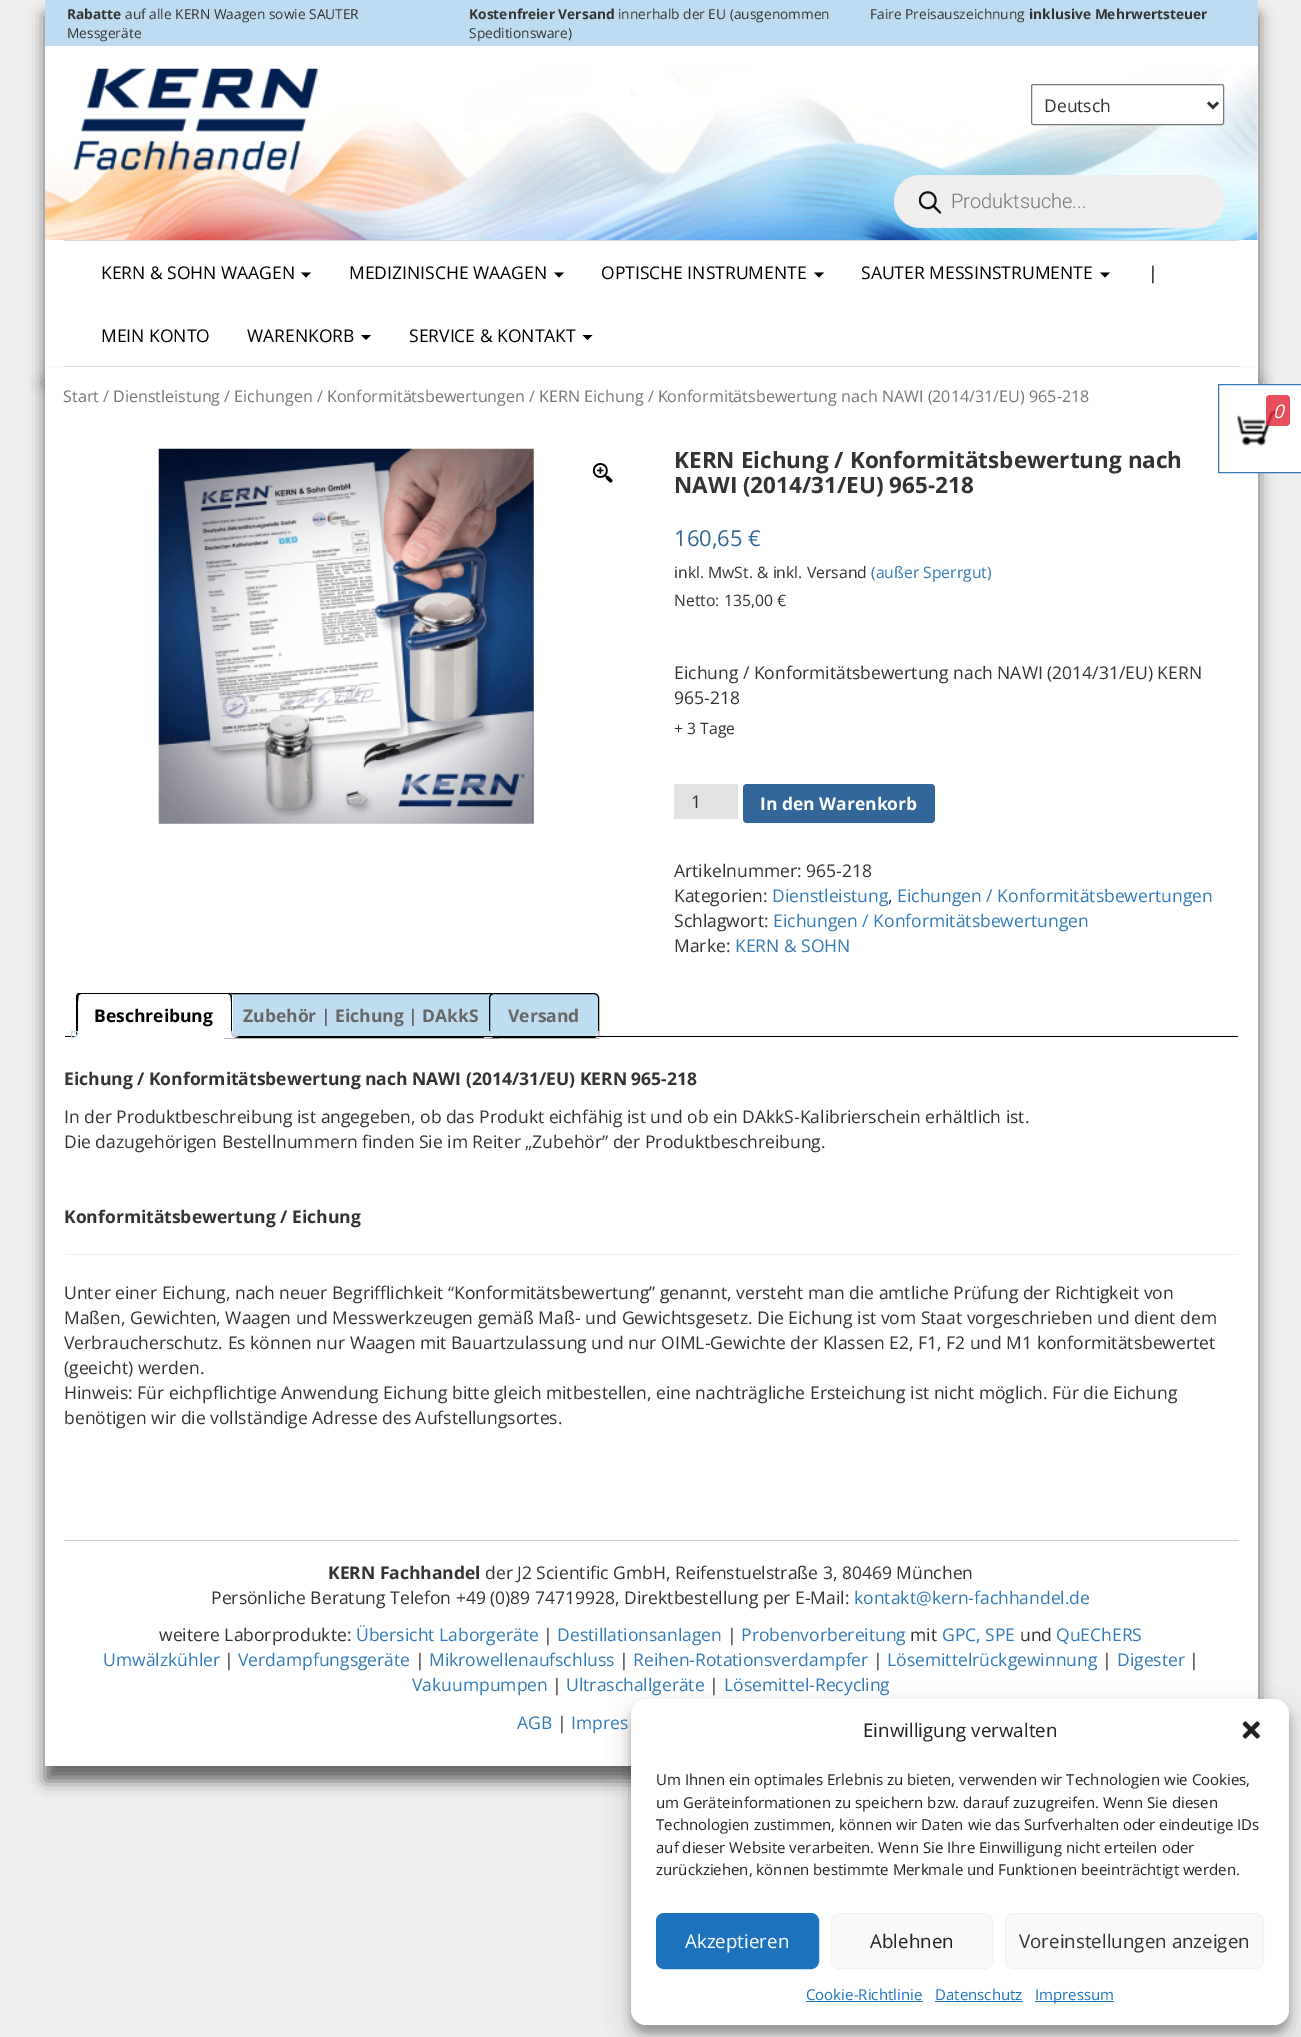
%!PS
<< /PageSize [1301 2037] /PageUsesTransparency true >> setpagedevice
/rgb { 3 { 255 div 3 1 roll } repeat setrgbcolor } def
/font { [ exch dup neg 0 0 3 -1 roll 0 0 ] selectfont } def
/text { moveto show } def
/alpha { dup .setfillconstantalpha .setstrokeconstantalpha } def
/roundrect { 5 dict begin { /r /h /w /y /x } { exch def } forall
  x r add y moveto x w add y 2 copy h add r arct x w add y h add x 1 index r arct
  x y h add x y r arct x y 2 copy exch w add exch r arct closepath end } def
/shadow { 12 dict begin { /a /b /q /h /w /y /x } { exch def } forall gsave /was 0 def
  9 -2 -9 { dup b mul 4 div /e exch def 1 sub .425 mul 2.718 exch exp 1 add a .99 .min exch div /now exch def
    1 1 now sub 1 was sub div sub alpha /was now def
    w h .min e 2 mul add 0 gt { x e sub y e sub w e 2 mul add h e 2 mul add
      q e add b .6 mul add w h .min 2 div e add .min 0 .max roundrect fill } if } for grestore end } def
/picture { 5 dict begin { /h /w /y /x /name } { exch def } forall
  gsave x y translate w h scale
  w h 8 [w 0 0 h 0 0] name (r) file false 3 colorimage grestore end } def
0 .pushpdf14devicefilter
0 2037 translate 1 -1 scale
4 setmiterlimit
238 238 238 rgb
0 0 1301 2037 rectfill
102 102 102 rgb
45 15 1213 368 0 7.5 1 shadow
255 255 255 rgb
45 46 1213 322 rectfill
190 220 241 rgb
45 0 1213 46 rectfill
(img_01.rgb) 45 66 1213 174 picture
(img_02.rgb) 73 68 245 103 picture
255 255 255 rgb
1031.5 84.5 192 40 2 roundrect gsave fill grestore
118 118 118 rgb
stroke
51 51 51 rgb
2.5 setlinewidth
1208 102.5 moveto 5 5 rlineto 5 -5 rlineto stroke
238 238 238 rgb
894 175 331 53 26.5 roundrect fill
(img_03.rgb) 919 191 22 23 picture
102 102 102 rgb
45 383 1213 1398 0 7.5 1 shadow
255 255 255 rgb
64 367 1175 1 rectfill
220 220 220 rgb
64 240 1175 1 rectfill
64 366 1175 1 rectfill
0 0 0 rgb
301 272.5 moveto 10 0 rlineto -5 5 rlineto closepath fill
554 272.5 moveto 10 0 rlineto -5 5 rlineto closepath fill
814 272.5 moveto 10 0 rlineto -5 5 rlineto closepath fill
1100 272.5 moveto 10 0 rlineto -5 5 rlineto closepath fill
361 335 moveto 10 0 rlineto -5 5 rlineto closepath fill
582.5 335 moveto 10 0 rlineto -5 5 rlineto closepath fill
255 255 255 rgb
45 368 1213 1398 rectfill
1258 385 43 87 rectfill
51 122 183 rgb
1 setlinewidth
1218.5 384.5 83 88 rectstroke
(img_04.rgb) 1237 409 41 37 picture
0.8 alpha
227 34 53 rgb
1266 395 24 31 4 roundrect fill
1 alpha
(img_05.rgb) 158 448 376 376 picture
(img_06.rgb) 592 463 21 20 picture
226 226 226 rgb
674 784 64 35 rectfill
51 102 153 rgb
743 784 192 39 4 roundrect fill
191 221 241 rgb
231 993 263 43 rectfill
0 0 0 rgb
224.5 993.5 273 44 rectstroke
191 221 241 rgb
494 993.5 moveto 100 0 rlineto 2.5 0 4.5 2 4.5 4.5 rcurveto 0 39.5 rlineto -109 0 rlineto 0 -39.5 rlineto 0 -2.5 2 -4.5 4.5 -4.5 rcurveto closepath gsave fill grestore
0 0 0 rgb
stroke
gsave
65 993 1173 45 rectclip
233 230 237 rgb
486 1037.5 moveto 0 2.5 rlineto 4.5 0 7 -1 7 -6 rcurveto -3 0 rlineto -1 1.5 -2 3 -4 3.5 rcurveto closepath fill
grestore
192 221 241 rgb
484.5 1031.5 moveto 5 0 rlineto 0 1.5 rlineto 0 2.5 -2 4.5 -4.5 4.5 rcurveto -0.5 0 rlineto closepath stroke
gsave
65 993 1173 45 rectclip
233 230 237 rgb
595 1034 moveto 0 4 2 6 6 6 rcurveto 0 -2.5 rlineto -1.5 -0.5 -3 -2 -3.5 -3.5 rcurveto closepath fill
grestore
207 200 216 rgb
597.5 1031 moveto 6.5 0 rlineto 0 6.5 rlineto -3.5 0 -6.5 -1.5 -6.5 -5 rcurveto closepath 599 1031 moveto 5 0 rlineto 0 5 rlineto -2.5 0 -5 -0.5 -5 -3.5 rcurveto closepath eofill
0 0 0 rgb
65 1036 1173 1 rectfill
255 255 255 rgb
81 993 moveto 147 0 rlineto 3 0 5 2 5 5 rcurveto 0 40 rlineto -157 0 rlineto 0 -40 rlineto 0 -3 2 -5 5 -5 rcurveto closepath fill
gsave
65 993 1173 45 rectclip
0 0 0 rgb
81 994 moveto -2 1 rlineto -2 -1 rlineto 2 -2 rlineto 150 0 rlineto 2 2 rlineto -1 1 rlineto -2 -1 rlineto closepath fill
grestore
0 0 0 rgb
231 994 moveto 1 1 1 3 1 4 rcurveto 0 39 rlineto -1 -1 rlineto 0 -5 1 -39 -1 -41 rcurveto closepath fill
255 255 255 rgb
232 1037 moveto 0 1 rlineto -156 0 rlineto 2 -2 rlineto 153 0 rlineto closepath fill
0 0 0 rgb
76 1038 moveto 0 -42 rlineto 1 -2 rlineto 2 1 rlineto -2 2 -1 35 -1 41 rcurveto closepath fill
gsave
65 993 1173 45 rectclip
255 255 255 rgb
74 1037.5 moveto 0 2.5 rlineto 4 0 6 -2 6 -6 rcurveto -2.5 0 rlineto -0.5 1.5 -2 3 -3.5 3.5 rcurveto closepath fill
grestore
192 221 241 rgb
71.5 1031.5 moveto 6 0 rlineto 0 1.5 rlineto 0 2.5 -2 4.5 -4.5 4.5 rcurveto -1.5 0 rlineto closepath stroke
gsave
65 993 1173 45 rectclip
255 255 255 rgb
229 1034 moveto 0 4 2 6 6 6 rcurveto 0 -2.5 rlineto -1.5 -0.5 -3 -2 -3.5 -3.5 rcurveto closepath fill
grestore
207 200 216 rgb
231 1031 moveto 6.5 0 rlineto 0 6.5 rlineto -3 0 -6.5 -1.5 -6.5 -5 rcurveto closepath 232.5 1031 moveto 5 0 rlineto 0 5 rlineto -2.5 0 -5 -0.5 -5 -3.5 rcurveto closepath eofill
238 238 238 rgb
65 1254 1173 1 rectfill
204 204 204 rgb
64 1540 1175 1 rectfill
0 0 0 rgb
631 1706 658 327 15 4 0.23 shadow
631 1711 658 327 15 12.5 0.19 shadow
255 255 255 rgb
631 1699 658 326 15 roundrect fill
(img_07.rgb) 1242 1721 18 18 picture
30 115 190 rgb
656.5 1913.5 162 55 7.5 roundrect gsave fill grestore
stroke
249 249 249 rgb
831.5 1913.5 161 55 7.5 roundrect gsave fill grestore
242 242 242 rgb
stroke
249 249 249 rgb
1005.5 1913.5 258 55 7.5 roundrect gsave fill grestore
242 242 242 rgb
stroke
30 115 190 rgb
806 2001 117 1 rectfill
935 2001 88 1 rectfill
1035 2001 79 1 rectfill
/OpenSans-Bold 13.75 font
51 51 51 rgb
(Rabatte) 67 19 text
/OpenSans-Regular 13.75 font
(auf alle KERN Waagen sowie SAUTER) 125 19 text
(Messgeräte) 67 38 text
/OpenSans-Bold 13.75 font
(Kostenfreier Versand) 469 19 text
/OpenSans-Regular 13.75 font
(innerhalb der EU \(ausgenommen) 618 19 text
(Speditionsware\)) 469 38 text
(Faire Preisauszeichnung) 870 19 text
/OpenSans-Bold 13.75 font
(inklusive Mehrwertsteuer) 1029 19 text
/OpenSans-Regular 17.5 font
(Deutsch) 1044 112 text
/Roboto-Light 20 font
118 118 118 rgb
(Produktsuche...) 951 208 text
/OpenSans-Regular 17.5 font
0 0 0 rgb
(KERN & SOHN WAAGEN) 101 279 text
(MEDIZINISCHE WAAGEN) 349 279 text
(OPTISCHE INSTRUMENTE) 601 279 text
(SAUTER MESSINSTRUMENTE) 861 279 text
(|) 1148 279 text
(MEIN KONTO) 101 342 text
(WARENKORB) 247 342 text
(SERVICE & KONTAKT) 409 342 text
/OpenSans-Regular 16.1 font
118 118 118 rgb
(Start / Dienstleistung / Eichungen / Konformitätsbewertungen / KERN Eichung / Konformitätsbewertung nach NAWI \(2014/31/EU\) 965-218) 63 402 text
/OpenSans-Italic 18.75 font
255 255 255 rgb
(0) 1273 418 text
/OpenSans-Bold 22.5 font
51 51 51 rgb
(KERN Eichung / Konformitätsbewertung nach) 674 468 text
(NAWI \(2014/31/EU\) 965-218) 674 493 text
/OpenSans-Regular 22 font
51 102 153 rgb
(160,65 €) 674 546 text
/OpenSans-Regular 15.75 font
51 51 51 rgb
(inkl. MwSt. & inkl. Versand) 674 578 text
51 122 183 rgb
(\(außer Sperrgut\)) 871 578 text
51 51 51 rgb
(Netto: 135,00 €) 674 606 text
/OpenSans-Regular 17.5 font
(Eichung / Konformitätsbewertung nach NAWI \(2014/31/EU\) KERN) 674 679 text
(965-218) 674 704 text
/OpenSans-Regular 15.75 font
(+ 3 Tage) 674 734 text
/OpenSans-Regular 17.5 font
(1) 691 808 text
/OpenSans-Bold 17.5 font
255 255 255 rgb
(In den Warenkorb) 760 810 text
/OpenSans-Regular 17.5 font
51 51 51 rgb
(Artikelnummer: 965-218) 674 877 text
(Kategorien:) 674 902 text
51 122 183 rgb
(Dienstleistung) 772 902 text
51 51 51 rgb
(,) 888 902 text
51 122 183 rgb
(Eichungen / Konformitätsbewertungen) 897 902 text
51 51 51 rgb
(Schlagwort:) 674 927 text
51 122 183 rgb
(Eichungen / Konformitätsbewertungen) 773 927 text
51 51 51 rgb
(Marke:) 674 952 text
51 122 183 rgb
(KERN & SOHN) 735 952 text
/OpenSans-Bold 17.5 font
0 0 0 rgb
(Beschreibung) 94 1022 text
102 102 102 rgb
(Zubehör | Eichung | DAkkS) 243 1022 text
(Versand) 508 1022 text
51 51 51 rgb
(Eichung / Konformitätsbewertung nach NAWI \(2014/31/EU\) KERN 965-218) 64 1085 text
/OpenSans-Regular 17.5 font
(In der Produktbeschreibung ist angegeben, ob das Produkt eichfähig ist und ob ein DAkkS-Kalibrierschein erhältlich ist.) 64 1123 text
(Die dazugehörigen Bestellnummern finden Sie im Reiter „Zubehör” der Produktbeschreibung.) 64 1148 text
/OpenSans-Bold 17.5 font
(Konformitätsbewertung / Eichung) 64 1223 text
/OpenSans-Regular 17.5 font
(Unter einer Eichung, nach neuer Begrifflichkeit “Konformitätsbewertung” genannt, versteht man die amtliche Prüfung der Richtigkeit von) 64 1299 text
(Maßen, Gewichten, Waagen und Messwerkzeugen gemäß Maß- und Gewichtsgesetz. Die Eichung ist vom Staat vorgeschrieben und dient dem) 64 1324 text
(Verbraucherschutz. Es können nur Waagen mit Bauartzulassung und nur OIML-Gewichte der Klassen E2, F1, F2 und M1 konformitätsbewertet) 64 1349 text
(\(geeicht\) werden.) 64 1374 text
(Hinweis: Für eichpflichtige Anwendung Eichung bitte gleich mitbestellen, eine nachträgliche Ersteichung ist nicht möglich. Für die Eichung) 64 1399 text
(benötigen wir die vollständige Adresse des Aufstellungsortes.) 64 1424 text
/OpenSans-Bold 17.5 font
(KERN Fachhandel) 328 1579 text
/OpenSans-Regular 17.5 font
(der J2 Scientific GmbH, Reifenstuelstraße 3, 80469 München) 485 1579 text
(Persönliche Beratung Telefon +49 \(0\)89 74719928, Direktbestellung per E-Mail:) 211 1604 text
51 122 183 rgb
(kontakt@kern-fachhandel.de) 854 1604 text
51 51 51 rgb
(weitere Laborprodukte:) 159 1641 text
51 122 183 rgb
(Übersicht Laborgeräte) 356 1641 text
51 51 51 rgb
(|) 543 1641 text
51 122 183 rgb
(Destillationsanlagen) 557 1641 text
51 51 51 rgb
(|) 727 1641 text
51 122 183 rgb
(Probenvorbereitung) 741 1641 text
51 51 51 rgb
(mit) 910 1641 text
51 122 183 rgb
(GPC, SPE) 942 1641 text
51 51 51 rgb
(und) 1020 1641 text
51 122 183 rgb
(QuEChERS) 1056 1641 text
(Umwälzkühler) 103 1666 text
51 51 51 rgb
(|) 224 1666 text
51 122 183 rgb
(Verdampfungsgeräte) 238 1666 text
51 51 51 rgb
(|) 415 1666 text
51 122 183 rgb
(Mikrowellenaufschluss) 429 1666 text
51 51 51 rgb
(|) 619 1666 text
51 122 183 rgb
(Reihen-Rotationsverdampfer) 633 1666 text
51 51 51 rgb
(|) 873 1666 text
51 122 183 rgb
(Lösemittelrückgewinnung) 887 1666 text
51 51 51 rgb
(|) 1102 1666 text
51 122 183 rgb
(Digester) 1117 1666 text
51 51 51 rgb
(|) 1189 1666 text
51 122 183 rgb
(Vakuumpumpen) 412 1691 text
51 51 51 rgb
(|) 552 1691 text
51 122 183 rgb
(Ultraschallgeräte) 566 1691 text
51 51 51 rgb
(|) 709 1691 text
51 122 183 rgb
(Lösemittel-Recycling) 724 1691 text
(AGB) 517 1729 text
51 51 51 rgb
(|) 557 1729 text
51 122 183 rgb
(Impres) 571 1729 text
/OpenSans-Regular 18.75 font
34 34 34 rgb
(Einwilligung verwalten) 863 1737 text
/OpenSans-Regular 15 font
(Um Ihnen ein optimales Erlebnis zu bieten, verwenden wir Technologien wie Cookies,) 656 1785 text
(um Geräteinformationen zu speichern bzw. darauf zuzugreifen. Wenn Sie diesen) 656 1808 text
(Technologien zustimmen, können wir Daten wie das Surfverhalten oder eindeutige IDs) 656 1830 text
(auf dieser Website verarbeiten. Wenn Sie Ihre Einwilligung nicht erteilen oder) 656 1853 text
(zurückziehen, können bestimmte Merkmale und Funktionen beeinträchtigt werden.) 656 1875 text
/OpenSans-Regular 18.75 font
255 255 255 rgb
(Akzeptieren) 685 1948 text
34 34 34 rgb
(Ablehnen) 870 1948 text
51 51 51 rgb
(Voreinstellungen anzeigen) 1019 1948 text
/OpenSans-Regular 15 font
30 115 190 rgb
(Cookie-Richtlinie) 806 2000 text
(Datenschutz) 935 2000 text
(Impressum) 1035 2000 text
.poppdf14devicefilter showpage
